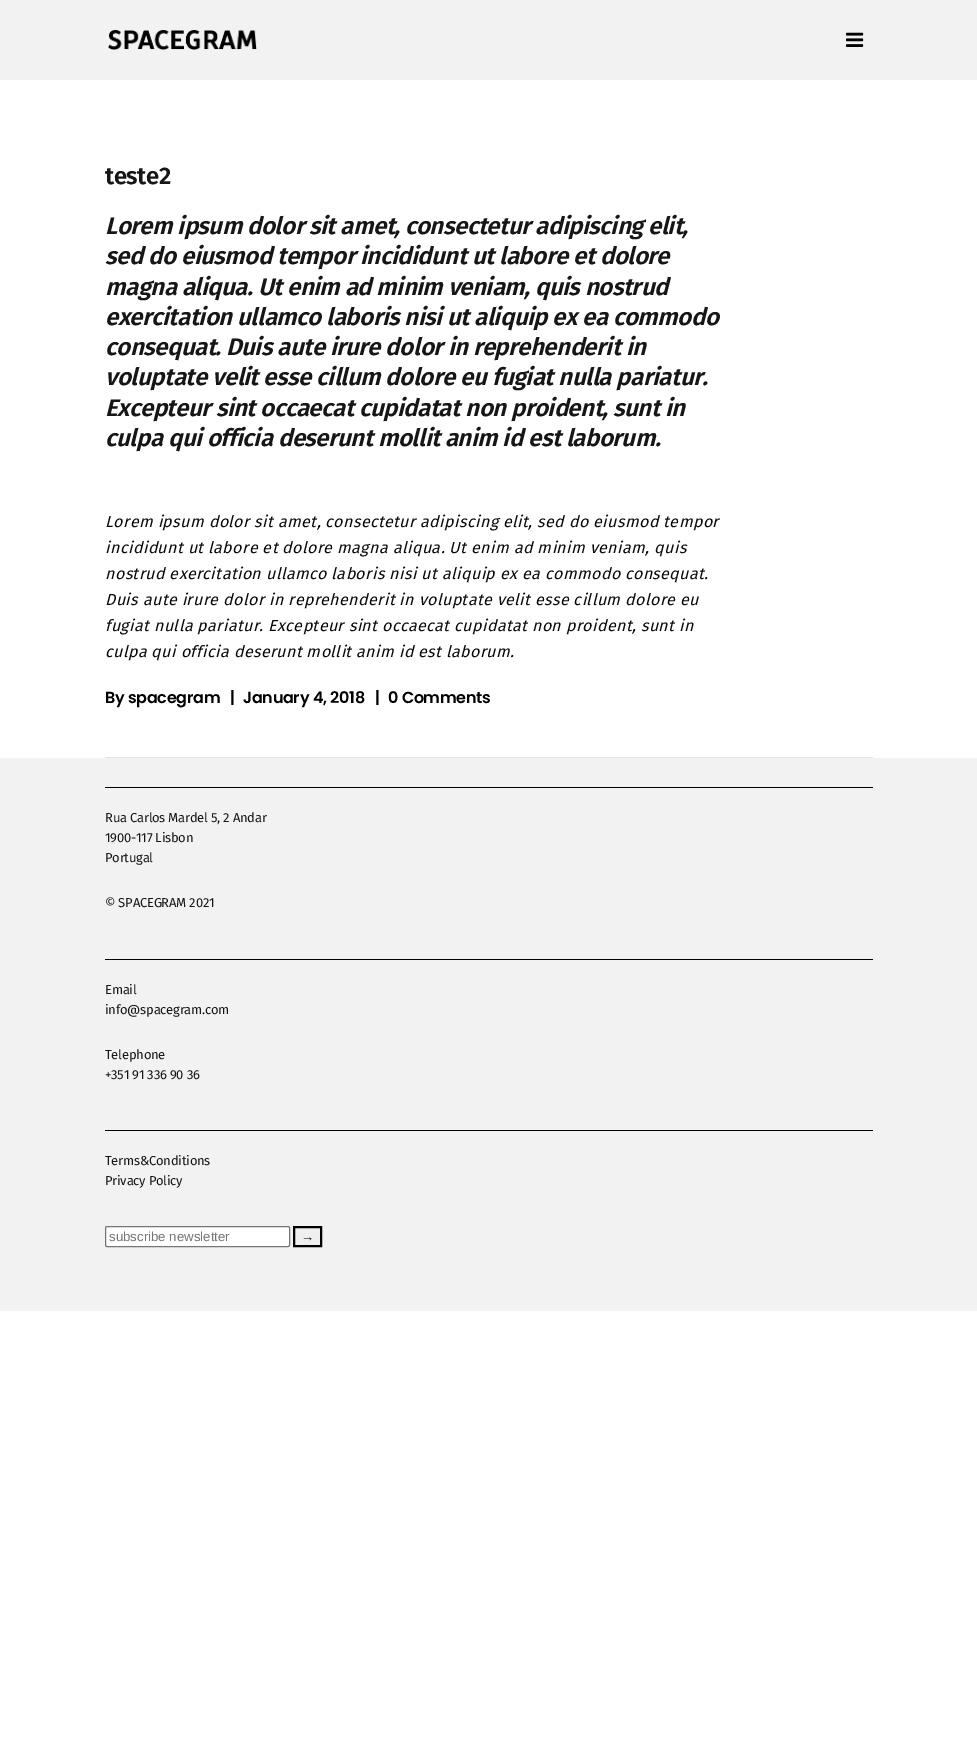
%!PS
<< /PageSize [977 1755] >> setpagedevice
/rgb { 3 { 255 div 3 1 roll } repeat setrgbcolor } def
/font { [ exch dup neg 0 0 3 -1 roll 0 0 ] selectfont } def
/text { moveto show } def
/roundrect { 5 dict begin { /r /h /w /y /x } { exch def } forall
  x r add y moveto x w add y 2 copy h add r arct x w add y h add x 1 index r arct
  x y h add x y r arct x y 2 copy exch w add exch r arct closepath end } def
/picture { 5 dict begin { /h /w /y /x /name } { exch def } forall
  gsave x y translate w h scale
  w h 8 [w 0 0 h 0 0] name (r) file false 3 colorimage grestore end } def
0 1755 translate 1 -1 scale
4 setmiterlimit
255 255 255 rgb
0 0 977 1755 rectfill
242 242 242 rgb
0 0 977 1311 rectfill
(img_01.rgb) 108 30 149 20 picture
(img_02.rgb) 846 32 18 15 picture
255 255 255 rgb
0 80 977 678 rectfill
228 228 228 rgb
105 757 768 1 rectfill
0 0 0 rgb
105 787 768 1 rectfill
105 959 768 1 rectfill
105 1130 768 1 rectfill
255 255 255 rgb
105.5 1226.5 184 20 1.5 roundrect gsave fill grestore
118 118 118 rgb
stroke
239 239 239 rgb
294 1227 moveto 27 0 rlineto 0 19 rlineto -27 0 rlineto closepath gsave fill grestore
0 0 0 rgb
2 setlinewidth
stroke
/FiraSans-SemiBold 24 font
22 22 22 rgb
105 184 moveto -0.48 0 (teste2) ashow
/FiraSans-SemiBoldItalic 24 font
105 234 moveto -0.48 0 (Lorem ipsum dolor sit amet, consectetur adipiscing elit,) ashow
105 264 moveto -0.48 0 (sed do eiusmod tempor incididunt ut labore et dolore) ashow
105 295 moveto -0.48 0 (magna aliqua. Ut enim ad minim veniam, quis nostrud) ashow
105 325 moveto -0.48 0 (exercitation ullamco laboris nisi ut aliquip ex ea commodo) ashow
105 355 moveto -0.48 0 (consequat. Duis aute irure dolor in reprehenderit in) ashow
105 385 moveto -0.48 0 (voluptate velit esse cillum dolore eu fugiat nulla pariatur.) ashow
105 416 moveto -0.48 0 (Excepteur sint occaecat cupidatat non proident, sunt in) ashow
105 446 moveto -0.48 0 (culpa qui officia deserunt mollit anim id est laborum.) ashow
/FiraSans-Italic 16 font
10 10 10 rgb
105 527 moveto 0.4 0 (Lorem ipsum dolor sit amet, consectetur adipiscing elit, sed do eiusmod tempor) ashow
105 553 moveto 0.4 0 (incididunt ut labore et dolore magna aliqua. Ut enim ad minim veniam, quis) ashow
105 579 moveto 0.4 0 (nostrud exercitation ullamco laboris nisi ut aliquip ex ea commodo consequat.) ashow
105 605 moveto 0.4 0 (Duis aute irure dolor in reprehenderit in voluptate velit esse cillum dolore eu) ashow
105 631 moveto 0.4 0 (fugiat nulla pariatur. Excepteur sint occaecat cupidatat non proident, sunt in) ashow
105 657 moveto 0.4 0 (culpa qui officia deserunt mollit anim id est laborum.) ashow
/Poppins-SemiBold 16 font
0 0 0 rgb
105 703 moveto -0.3 0 (By spacegram) ashow
230 703 moveto -0.3 0 (|) ashow
243 703 moveto -0.3 0 (January 4, 2018) ashow
375 703 moveto -0.3 0 (|) ashow
388 703 moveto -0.3 0 (0 Comments) ashow
/FiraSans-Regular 13 font
22 22 22 rgb
105 822 moveto -0.25 0 (Rua Carlos Mardel 5, 2 Andar) ashow
105 842 moveto -0.25 0 (1900-117 Lisbon) ashow
105 862 moveto -0.25 0 (Portugal) ashow
105 907 moveto -0.25 0 (© SPACEGRAM 2021) ashow
105 994 moveto -0.25 0 (Email) ashow
105 1014 moveto -0.25 0 (info@spacegram.com) ashow
105 1059 moveto -0.25 0 (Telephone) ashow
105 1079 moveto -0.25 0 (+351 91 336 90 36) ashow
105 1165 moveto -0.25 0 (Terms&Conditions) ashow
105 1185 moveto -0.25 0 (Privacy Policy) ashow
/LiberationSans-Regular 13.25 font
117 117 117 rgb
(subscribe newsletter) 109 1241 text
0 0 0 rgb
(→) 301 1241 text
showpage
